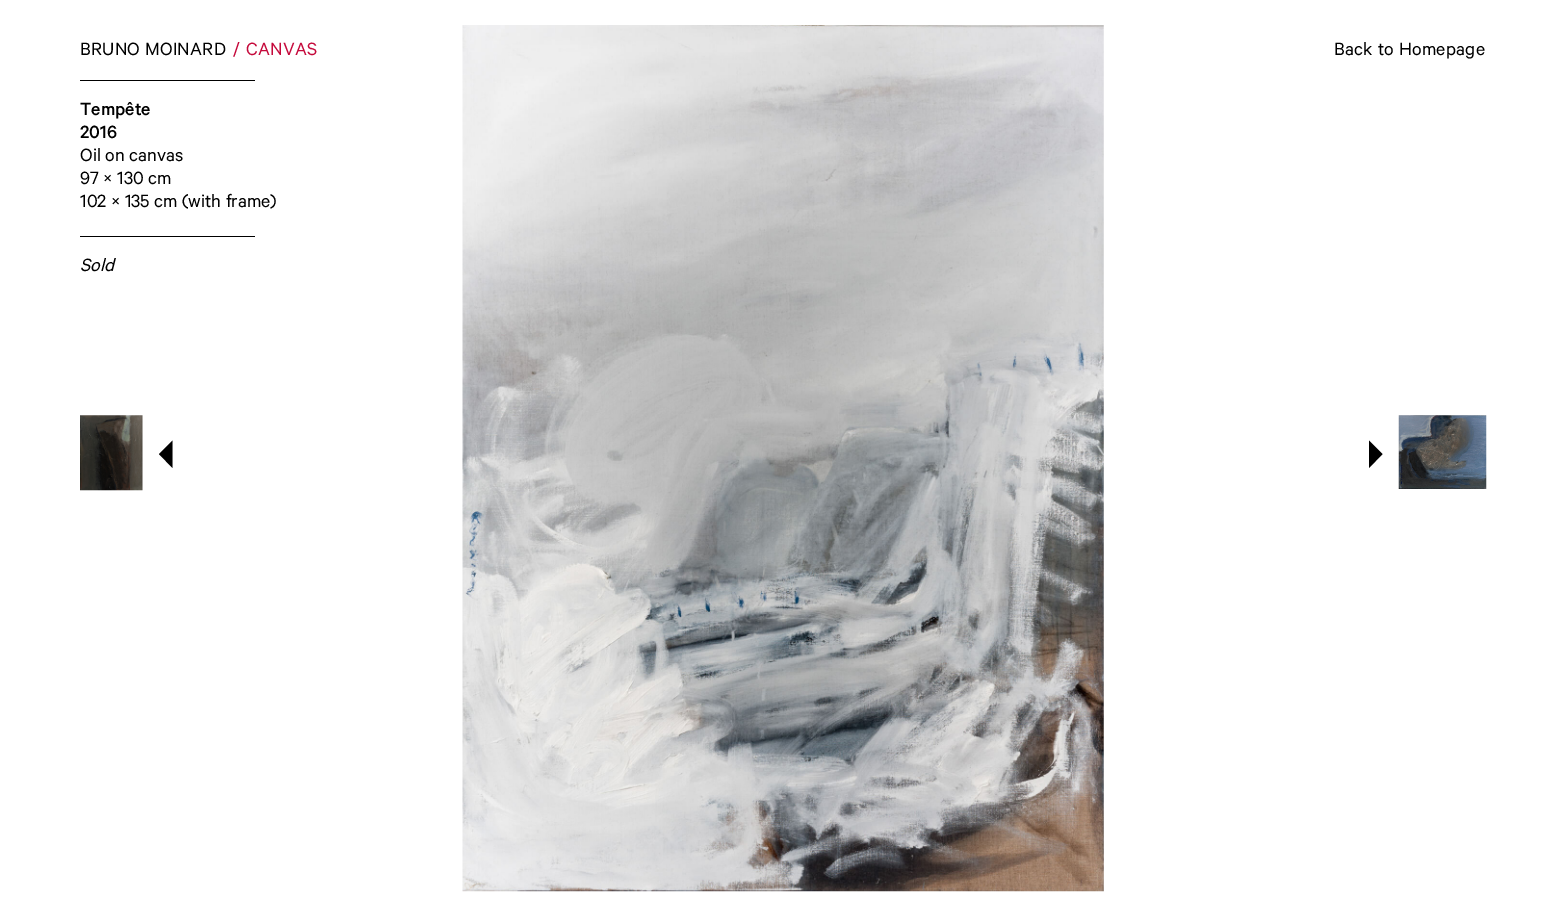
%!PS
<< /PageSize [1566 916] >> setpagedevice
/rgb { 3 { 255 div 3 1 roll } repeat setrgbcolor } def
/font { [ exch dup neg 0 0 3 -1 roll 0 0 ] selectfont } def
/text { moveto show } def
/picture { 5 dict begin { /h /w /y /x /name } { exch def } forall
  gsave x y translate w h scale
  w h 8 [w 0 0 h 0 0] name (r) file false 3 colorimage grestore end } def
0 916 translate 1 -1 scale
4 setmiterlimit
255 255 255 rgb
0 0 1566 916 rectfill
(img_01.rgb) 462 25 642 867 picture
0 0 0 rgb
80 80 175 1 rectfill
80 236 175 1 rectfill
(img_02.rgb) 80 415 63 76 picture
172.5 440.5 moveto 0 27.5 rlineto -13.5 -14 rlineto closepath fill
1369 468 moveto 0 -27.5 rlineto 13.5 13.5 rlineto closepath fill
(img_03.rgb) 1398 415 89 74 picture
/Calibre-Regular 20 font
80 55 moveto 0.25 0 (BRUNO MOINARD) ashow
197 9 59 rgb
233 55 moveto 0.25 0 (/) ashow
246 55 moveto 0.25 0 (CANVAS) ashow
0 0 0 rgb
1334 55 moveto 0.25 0 (Back to Homepage) ashow
/Calibre-Medium 20 font
(Tempête) 80 115 text
(2016) 80 138 text
/Calibre-Regular 20 font
(Oil on canvas) 80 161 text
(97 × 130 cm) 80 184 text
(102 × 135 cm \(with frame\)) 80 207 text
/Calibre-Italic 20 font
(Sold) 80 271 text
showpage
